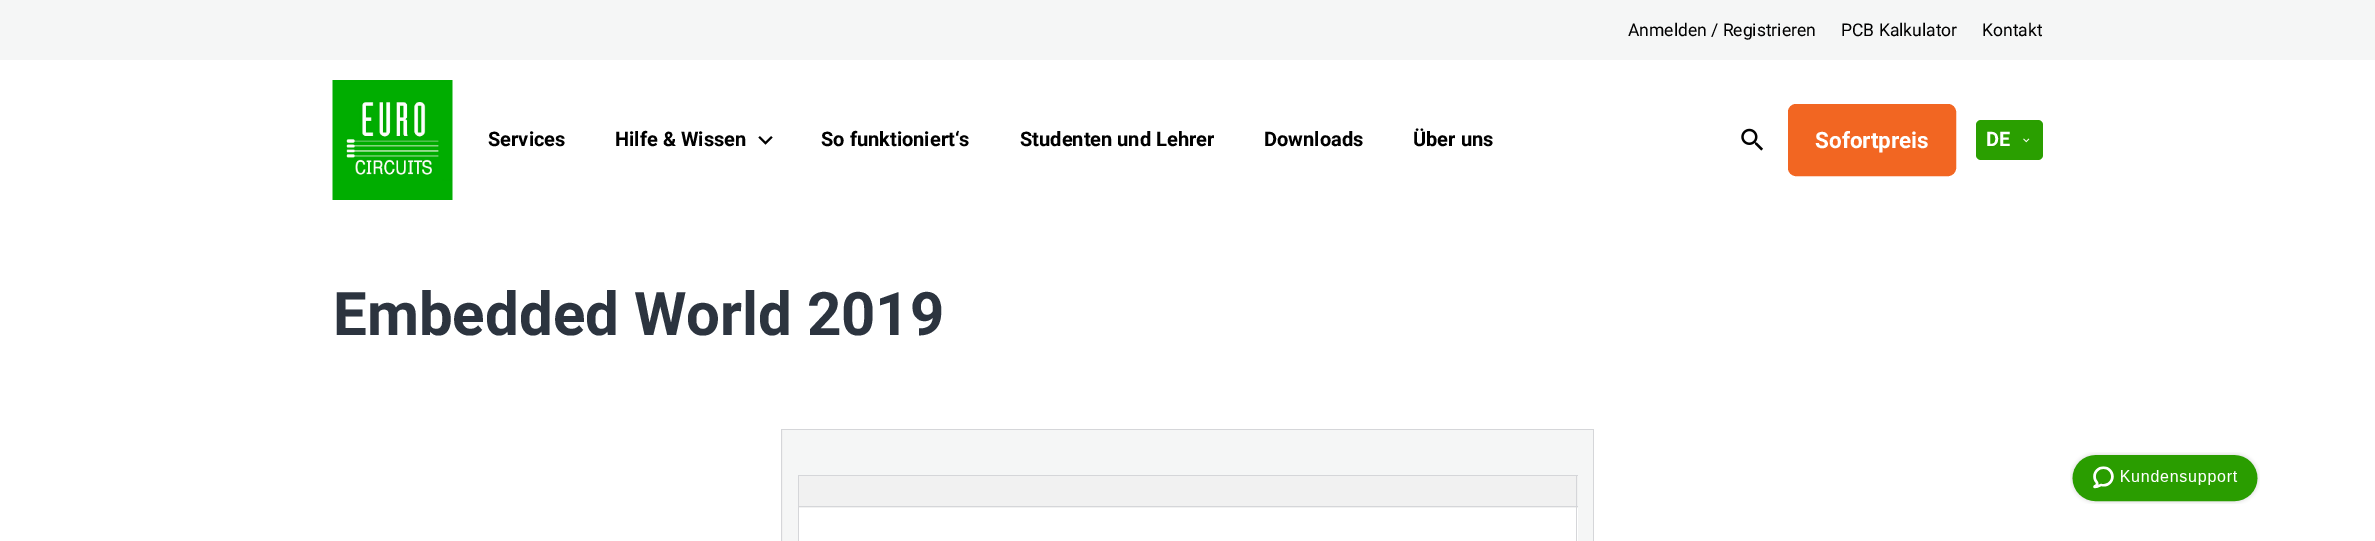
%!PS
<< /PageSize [2375 541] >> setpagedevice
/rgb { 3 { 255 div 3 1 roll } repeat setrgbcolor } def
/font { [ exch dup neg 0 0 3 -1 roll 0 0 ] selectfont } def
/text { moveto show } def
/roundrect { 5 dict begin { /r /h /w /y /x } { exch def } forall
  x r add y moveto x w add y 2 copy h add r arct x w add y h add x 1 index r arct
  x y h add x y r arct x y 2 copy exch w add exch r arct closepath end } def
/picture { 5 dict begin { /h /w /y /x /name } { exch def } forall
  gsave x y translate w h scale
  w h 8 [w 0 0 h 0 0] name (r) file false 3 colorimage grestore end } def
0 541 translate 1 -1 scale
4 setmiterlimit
255 255 255 rgb
0 0 2375 541 rectfill
245 246 246 rgb
0 0 2375 60 rectfill
(img_01.rgb) 332 80 121 120 picture
(img_02.rgb) 758 136 15 9 picture
(img_03.rgb) 1741 128 22 23 picture
242 102 34 rgb
1789.5 105.5 165 69 6.5 roundrect gsave fill grestore
3 setlinewidth
stroke
42 159 0 rgb
1976 120 67 40 5 roundrect fill
(img_04.rgb) 2023 138 7 5 picture
241 241 241 rgb
782 430 1 111 rectfill
213 214 217 rgb
781 429 813 1 rectfill
1593 429 1 112 rectfill
781 429 1 112 rectfill
245 246 246 rgb
783 430 810 111 rectfill
255 255 255 rgb
799 508 779 33 rectfill
241 241 241 rgb
799 476 779 32 rectfill
213 214 217 rgb
798 475 780 1 rectfill
798 506 780 1 rectfill
1576 506 1 35 rectfill
1576 475 1 33 rectfill
798 506 1 35 rectfill
798 475 1 33 rectfill
(img_05.rgb) 2070 452 190 52 picture
/Roboto-Regular 17.5 font
0 0 0 rgb
(Anmelden / Registrieren) 1628 36 text
(PCB Kalkulator) 1841 36 text
(Kontakt) 1982 36 text
/Roboto-Bold 20 font
(Services) 488 146 text
(Hilfe & Wissen) 615 146 text
(So funktioniert‘s) 821 146 text
(Studenten und Lehrer) 1020 146 text
(Downloads) 1264 146 text
(Über uns) 1413 146 text
/Roboto-Bold 22.5 font
255 255 255 rgb
(Sofortpreis) 1815 148 text
/Roboto-Bold 20 font
(DE) 1986 146 text
/Roboto-Bold 60 font
44 52 63 rgb
(Embedded World 2019) 333 335 text
showpage
